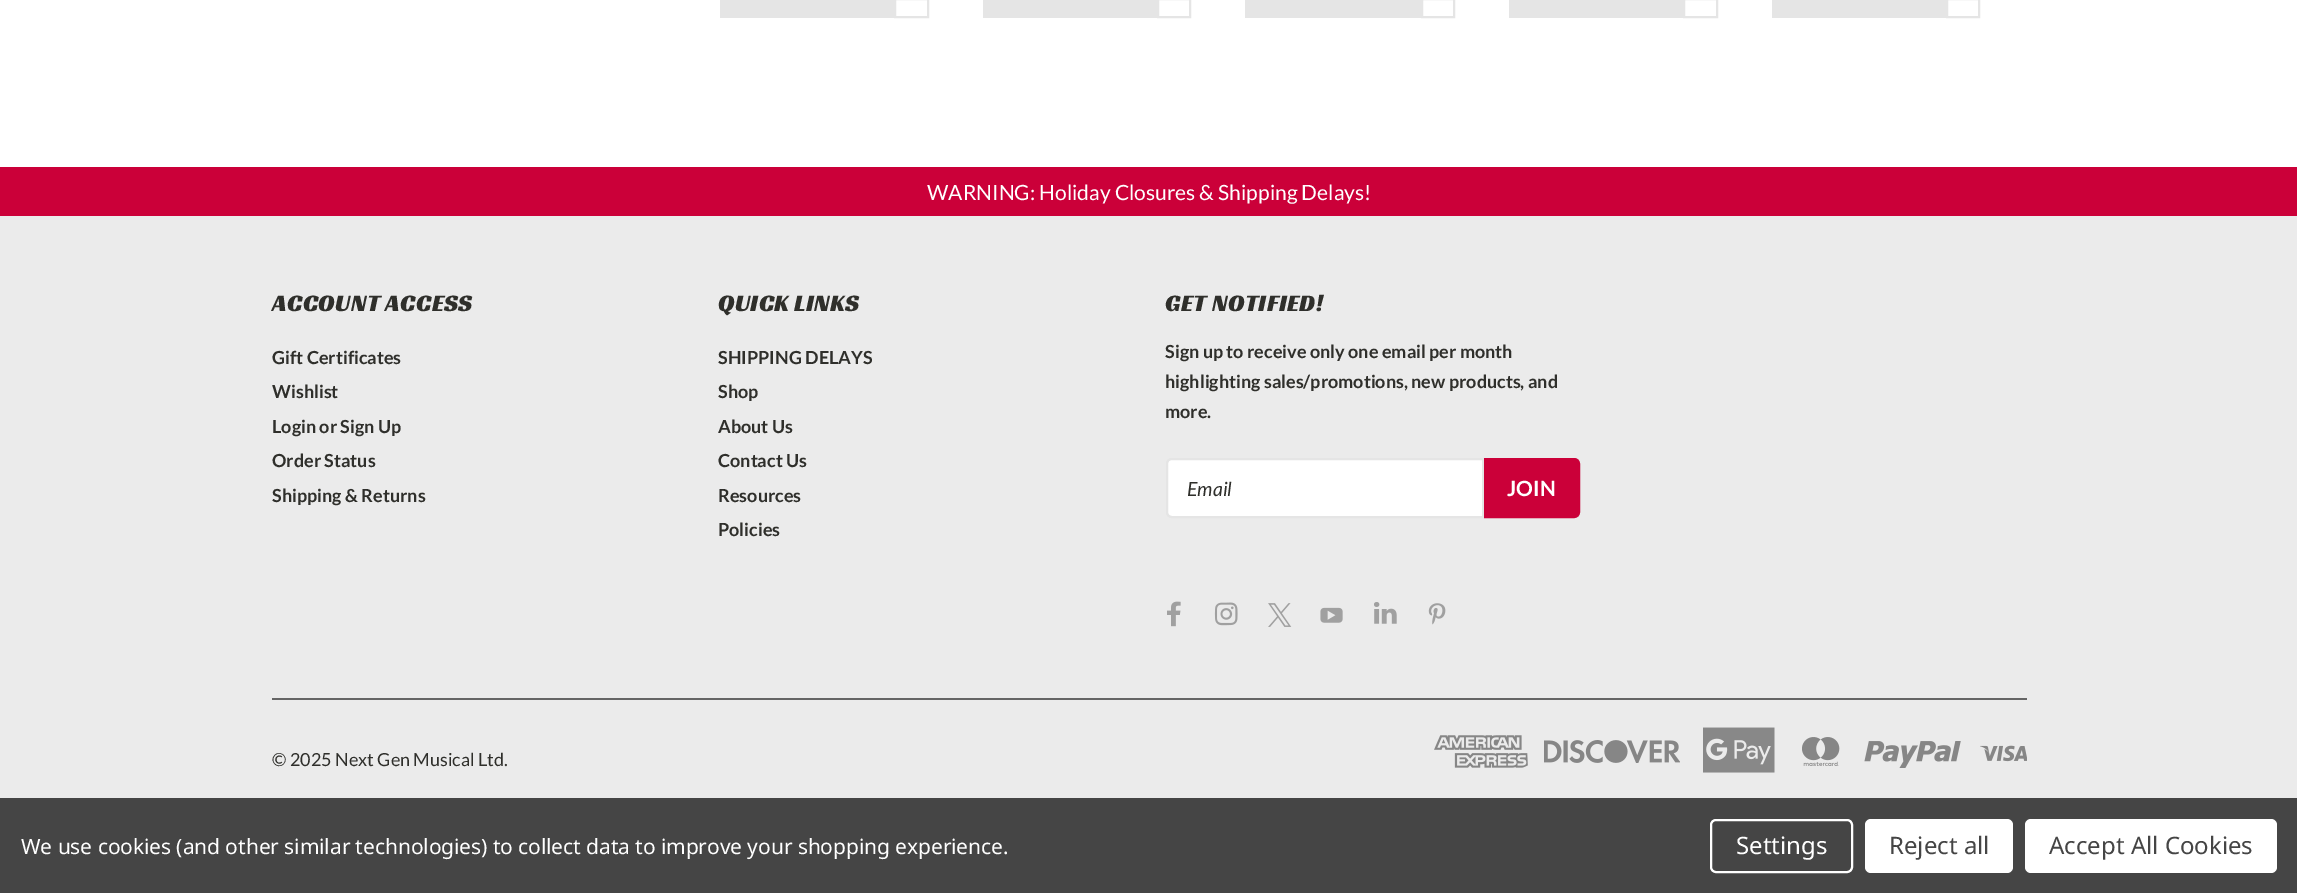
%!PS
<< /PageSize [2297 893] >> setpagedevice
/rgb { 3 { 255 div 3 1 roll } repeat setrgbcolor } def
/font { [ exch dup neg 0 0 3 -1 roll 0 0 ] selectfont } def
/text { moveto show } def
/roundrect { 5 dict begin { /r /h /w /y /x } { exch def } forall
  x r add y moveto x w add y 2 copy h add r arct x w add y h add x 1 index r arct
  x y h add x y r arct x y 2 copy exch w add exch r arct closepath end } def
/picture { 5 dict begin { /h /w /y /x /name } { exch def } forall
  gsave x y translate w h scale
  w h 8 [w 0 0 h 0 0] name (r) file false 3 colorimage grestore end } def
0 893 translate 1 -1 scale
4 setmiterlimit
255 255 255 rgb
0 0 2297 893 rectfill
229 229 229 rgb
720 0 174 18 rectfill
2 setlinewidth
895 -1 33 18 rectstroke
983 0 174 18 rectfill
1158 -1 32 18 rectstroke
1245 0 176 18 rectfill
1422 -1 32 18 rectstroke
1509 0 174 18 rectfill
1684 -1 33 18 rectstroke
1772 0 174 18 rectfill
1947 -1 32 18 rectstroke
203 0 57 rgb
0 167 2297 49 rectfill
235 235 235 rgb
0 216 2297 582 rectfill
255 255 255 rgb
1172 459 moveto 311 0 rlineto 0 58 rlineto -311 0 rlineto -3 0 -5 -2 -5 -5 rcurveto 0 -48 rlineto 0 -3 2 -5 5 -5 rcurveto closepath gsave fill grestore
229 229 229 rgb
stroke
203 0 57 rgb
1485 459 moveto 89 0 rlineto 3 0 5 2 5 5 rcurveto 0 48 rlineto 0 3 -2 5 -5 5 rcurveto -89 0 rlineto closepath gsave fill grestore
stroke
(img_01.rgb) 1167 601 14 26 picture
(img_02.rgb) 1214 602 24 24 picture
(img_03.rgb) 1268 603 24 24 picture
(img_04.rgb) 1320 607 23 16 picture
(img_05.rgb) 1374 602 23 22 picture
(img_06.rgb) 1428 603 18 22 picture
101 101 101 rgb
272 698 1755 2 rectfill
(img_07.rgb) 1434 735 94 33 picture
(img_08.rgb) 1544 740 136 23 picture
(img_09.rgb) 1703 727 72 46 picture
(img_10.rgb) 1802 737 38 29 picture
(img_11.rgb) 1864 741 97 27 picture
(img_12.rgb) 1980 745 47 17 picture
69 69 69 rgb
0 798 2297 95 rectfill
255 255 255 rgb
1711 820 141 52 5 roundrect stroke
1865 819 148 54 6 roundrect fill
2025 819 252 54 6 roundrect fill
/Lato-Regular 21 font
(WARNING: Holiday Closures & Shipping Delays!) 927 200 text
/RacingSansOne-Regular 24 font
47 47 43 rgb
272 311 moveto 0.4 0 (ACCOUNT ACCESS) ashow
/Lato-Bold 18 font
(Gift Certificates) 272 364 text
(Wishlist) 272 398 text
(Login or) 272 433 text
(Sign Up) 340 433 text
(Order Status) 272 467 text
(Shipping & Returns) 272 502 text
/RacingSansOne-Regular 24 font
718 311 moveto 0.4 0 (QUICK LINKS) ashow
/Lato-Bold 18 font
(SHIPPING DELAYS) 718 364 text
(Shop) 718 398 text
(About Us) 718 433 text
(Contact Us) 718 467 text
(Resources) 718 502 text
(Policies) 718 536 text
/RacingSansOne-Regular 24 font
1165 311 moveto 0.4 0 (GET NOTIFIED!) ashow
/Lato-Bold 18 font
(Sign up to receive only one email per month) 1165 358 text
(highlighting sales/promotions, new products, and) 1165 388 text
(more.) 1165 418 text
/Lato-Italic 19.5 font
(Email) 1187 496 text
/Lato-Bold 21 font
255 255 255 rgb
(JOIN) 1507 496 text
/Lato-Regular 18 font
47 47 43 rgb
(© 2025 Next Gen Musical Ltd.) 272 766 text
/NotoSans-Regular 21 font
255 255 255 rgb
21 854 moveto -0.08 0 (We use cookies \(and other similar technologies\) to collect data to improve your shopping experience.) ashow
/NotoSans-Regular 24 font
(Settings) 1736 854 text
69 69 69 rgb
(Reject all) 1889 854 text
(Accept All Cookies) 2049 854 text
showpage
